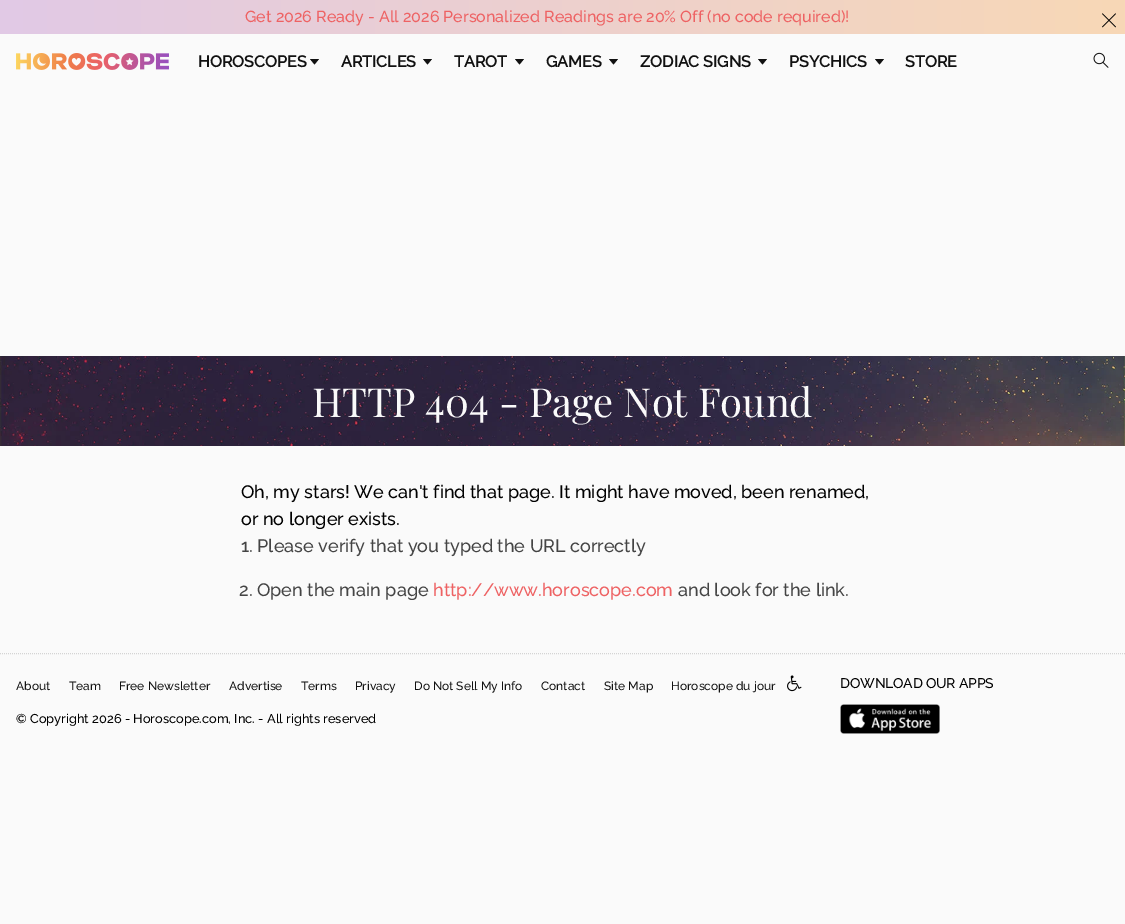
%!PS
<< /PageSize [1125 924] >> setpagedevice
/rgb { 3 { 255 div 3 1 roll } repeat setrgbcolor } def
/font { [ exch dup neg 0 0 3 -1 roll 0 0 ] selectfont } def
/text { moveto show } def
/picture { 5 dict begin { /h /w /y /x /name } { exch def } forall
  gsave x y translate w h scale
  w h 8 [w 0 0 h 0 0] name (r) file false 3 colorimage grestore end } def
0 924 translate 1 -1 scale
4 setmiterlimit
250 250 250 rgb
0 0 1125 924 rectfill
gsave 0 0 moveto 1125 0 rlineto 0 34 rlineto -1125 0 rlineto closepath clip newpath
<< /ShadingType 2 /ColorSpace /DeviceRGB /Coords [0 17 1125 17] /Extend [true true] /Function << /FunctionType 2 /Domain [0 1] /C0 [0.882 0.788 0.902] /C1 [0.973 0.847 0.714] /N 1 >> >> shfill grestore
(img_01.rgb) 1102 13 14 15 picture
(img_02.rgb) 16 53 153 17 picture
17 17 17 rgb
310 59 moveto 4.5 5.5 rlineto 4.5 -5.5 rlineto closepath fill
423 59 moveto 4.5 5.5 rlineto 4.5 -5.5 rlineto closepath fill
515 59 moveto 4.5 5.5 rlineto 4.5 -5.5 rlineto closepath fill
609 59 moveto 4.5 5.5 rlineto 4.5 -5.5 rlineto closepath fill
758 59 moveto 4.5 5.5 rlineto 4.5 -5.5 rlineto closepath fill
875 59 moveto 4.5 5.5 rlineto 4.5 -5.5 rlineto closepath fill
(img_03.rgb) 1093 52 16 16 picture
(img_04.rgb) 0 356 1125 90 picture
212 212 212 rgb
[1 1] 0 setdash
0 653.5 moveto 1125 0 rlineto stroke
(img_05.rgb) 787 675 15 17 picture
(img_06.rgb) 840 704 100 30 picture
/Raleway-Thin 16 font
238 98 99 rgb
(Get 2026 Ready - All 2026 Personalized Readings are 20% Off \(no code required\)!) 245 22 text
/Raleway-Bold 16 font
17 17 17 rgb
(HOROSCOPES) 198 67 text
(ARTICLES) 341 67 text
(TAROT) 454 67 text
(GAMES) 546 67 text
(ZODIAC SIGNS) 640 67 text
(PSYCHICS) 789 67 text
(STORE) 905 67 text
/PlayfairDisplay-Regular 40 font
250 250 250 rgb
(HTTP 404 - Page Not Found) 312 417 text
/Raleway-Thin 18 font
0 0 0 rgb
(Oh, my stars! We can't find that page. It might have moved, been renamed,) 241 498 text
(or no longer exists.) 241 525 text
68 68 68 rgb
(1. Please verify that you typed the URL correctly) 241 552 text
(2. Open the main page) 239 596 text
238 98 99 rgb
(http://www.horoscope.com) 433 596 text
68 68 68 rgb
(and look for the link.) 678 596 text
/Raleway-Thin 12 font
17 17 17 rgb
(About) 16 690 text
(Team) 69 690 text
(Free Newsletter) 119 690 text
(Advertise) 229 690 text
(Terms) 301 690 text
(Privacy) 355 690 text
(Do Not Sell My Info) 414 690 text
(Contact) 541 690 text
(Site Map) 604 690 text
(Horoscope du jour) 671 690 text
/Raleway-Thin 12.8 font
0 0 0 rgb
(© Copyright 2026 - Horoscope.com, Inc. - All rights reserved) 16 723 text
/Raleway-Thin 14 font
840 688 moveto -0.2 0 (DOWNLOAD OUR APPS) ashow
showpage
